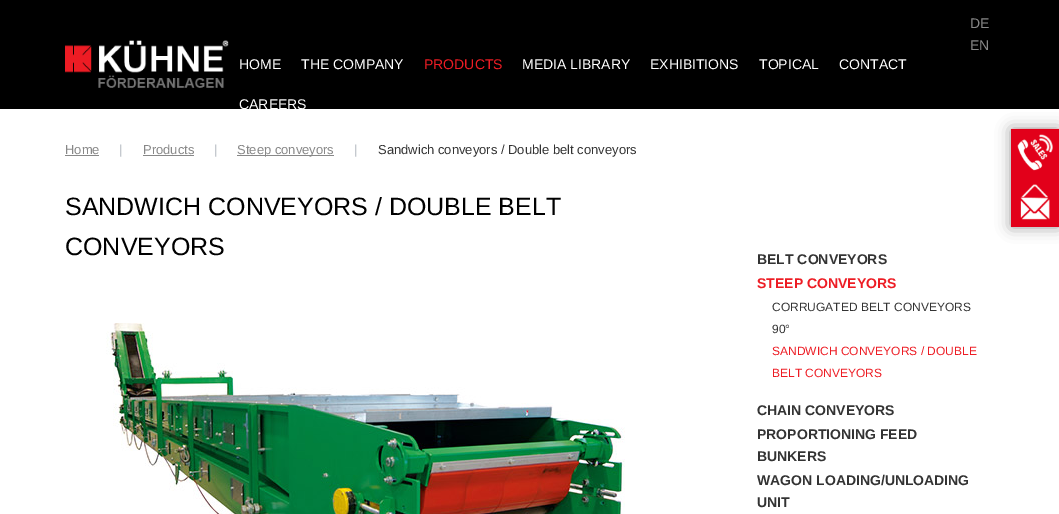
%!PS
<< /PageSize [1059 514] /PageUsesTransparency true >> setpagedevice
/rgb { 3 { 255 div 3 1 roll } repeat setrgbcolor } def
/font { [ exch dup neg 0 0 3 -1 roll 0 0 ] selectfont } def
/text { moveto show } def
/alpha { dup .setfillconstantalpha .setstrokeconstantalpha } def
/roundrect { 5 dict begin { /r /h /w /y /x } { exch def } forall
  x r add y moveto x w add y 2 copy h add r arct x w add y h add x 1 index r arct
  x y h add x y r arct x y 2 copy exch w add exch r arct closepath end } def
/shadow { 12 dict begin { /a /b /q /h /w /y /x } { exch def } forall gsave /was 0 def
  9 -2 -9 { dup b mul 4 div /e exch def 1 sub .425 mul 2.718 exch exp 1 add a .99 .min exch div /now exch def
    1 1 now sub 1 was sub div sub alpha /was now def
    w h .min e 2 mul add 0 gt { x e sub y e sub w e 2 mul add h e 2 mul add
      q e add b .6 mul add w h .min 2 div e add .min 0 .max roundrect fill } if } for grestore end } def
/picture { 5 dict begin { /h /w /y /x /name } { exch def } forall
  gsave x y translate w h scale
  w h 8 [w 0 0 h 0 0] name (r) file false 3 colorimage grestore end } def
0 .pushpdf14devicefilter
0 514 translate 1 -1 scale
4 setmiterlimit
255 255 255 rgb
0 0 1059 514 rectfill
0 0 0 rgb
0 0 1059 109 rectfill
(img_01.rgb) 65 40 164 48 picture
136 136 136 rgb
65 155 34 1 rectfill
143 155 51 1 rectfill
237 155 97 1 rectfill
(img_02.rgb) 106 323 519 191 picture
153 153 153 rgb
1011 129 48 98 0 7.5 1 shadow
226 0 26 rgb
1011 129 48 98 rectfill
(img_03.rgb) 1011 128 48 43 picture
(img_04.rgb) 1020 184 30 36 picture
/LiberationSans-Regular 14 font
136 136 136 rgb
(DE) 970 28 text
(EN) 970 50 text
255 255 255 rgb
(HOME) 239 69 text
(THE COMPANY) 301 69 text
237 28 36 rgb
(PRODUCTS) 424 69 text
255 255 255 rgb
(MEDIA LIBRARY) 522 69 text
(EXHIBITIONS) 650 69 text
(TOPICAL) 759 69 text
(CONTACT) 839 69 text
(CAREERS) 239 109 text
/LiberationSans-Regular 13 font
136 136 136 rgb
(Home) 65 154 text
176 182 189 rgb
(|) 119 154 text
136 136 136 rgb
(Products) 143 154 text
176 182 189 rgb
(|) 214 154 text
136 136 136 rgb
(Steep conveyors) 237 154 text
176 182 189 rgb
(|) 354 154 text
51 51 51 rgb
(Sandwich conveyors / Double belt conveyors) 378 154 text
/LiberationSans-Regular 25 font
0 0 0 rgb
(SANDWICH CONVEYORS / DOUBLE BELT) 65 215 text
(CONVEYORS) 65 255 text
/LiberationSans-Bold 14 font
51 51 51 rgb
(BELT CONVEYORS) 757 264 text
237 28 36 rgb
(STEEP CONVEYORS) 757 288 text
/LiberationSans-Regular 12 font
51 51 51 rgb
(CORRUGATED BELT CONVEYORS) 772 311 text
(90°) 772 333 text
237 28 36 rgb
(SANDWICH CONVEYORS / DOUBLE) 772 355 text
(BELT CONVEYORS) 772 377 text
/LiberationSans-Bold 14 font
51 51 51 rgb
(CHAIN CONVEYORS) 757 415 text
(PROPORTIONING FEED) 757 439 text
(BUNKERS) 757 461 text
(WAGON LOADING/UNLOADING) 757 485 text
(UNIT) 757 507 text
.poppdf14devicefilter showpage
